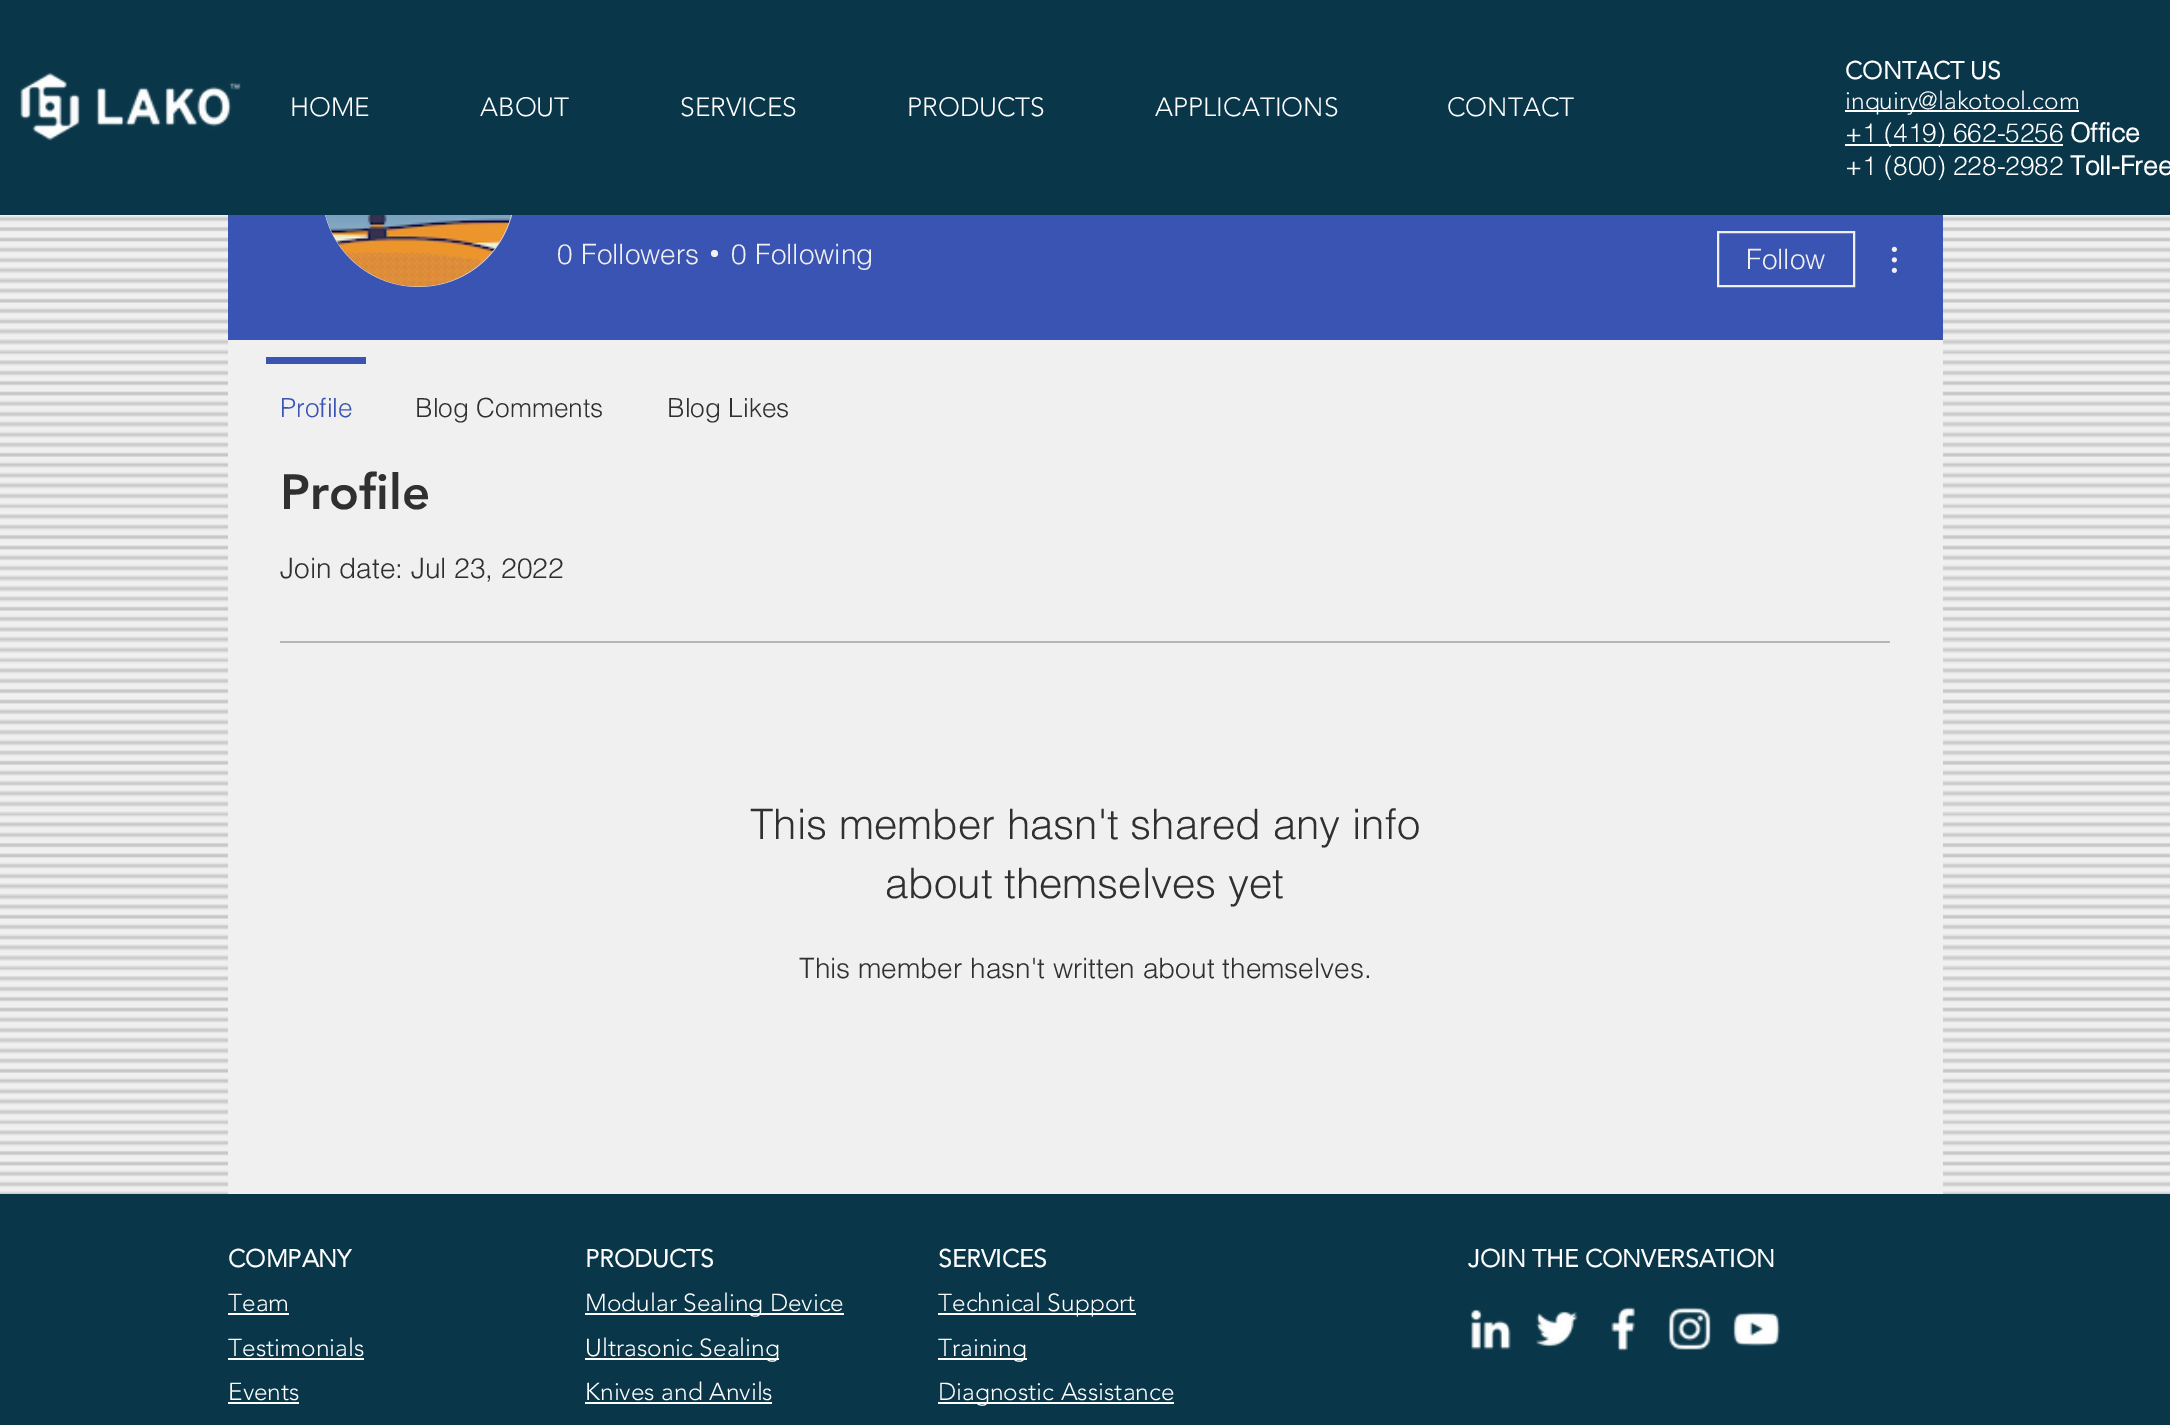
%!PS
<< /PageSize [2170 1425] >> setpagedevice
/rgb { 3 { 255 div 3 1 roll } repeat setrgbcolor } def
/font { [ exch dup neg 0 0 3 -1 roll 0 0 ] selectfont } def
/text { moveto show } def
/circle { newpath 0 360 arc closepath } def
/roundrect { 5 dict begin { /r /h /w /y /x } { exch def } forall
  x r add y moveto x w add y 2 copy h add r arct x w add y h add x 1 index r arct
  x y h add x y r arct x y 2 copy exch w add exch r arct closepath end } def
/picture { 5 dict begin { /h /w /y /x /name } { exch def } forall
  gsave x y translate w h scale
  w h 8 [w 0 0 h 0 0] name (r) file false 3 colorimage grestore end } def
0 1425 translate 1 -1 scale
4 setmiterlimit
240 240 240 rgb
0 0 2170 1425 rectfill
(img_09.rgb) 0 216 2170 978 picture
58 84 180 rgb
228 215 1715 125 rectfill
216 216 216 rgb
322 95 193 192 96 roundrect fill
9 55 73 rgb
0 0 2170 215 rectfill
(img_01.rgb) 20 72 221 69 picture
255 255 255 rgb
1845 110 234 2 rectfill
1845 144 218 2 rectfill
(img_02.rgb) 325 215 186 72 picture
240 240 240 rgb
714.5 253.5 3.5 circle fill
2 setlinewidth
1718 232 136 54 rectstroke
(img_03.rgb) 1891 246 6 27 picture
228 340 1715 854 rectfill
58 84 180 rgb
266 357 100 7 rectfill
182 182 182 rgb
280 641 1610 2 rectfill
9 55 73 rgb
0 1194 2170 231 rectfill
255 255 255 rgb
228 1313 61 2 rectfill
228 1358 136 2 rectfill
228 1402 71 2 rectfill
585 1313 259 2 rectfill
585 1358 194 2 rectfill
585 1402 187 2 rectfill
938 1313 198 2 rectfill
938 1358 89 2 rectfill
938 1402 236 2 rectfill
(img_04.rgb) 1470 1309 41 41 picture
(img_05.rgb) 1536 1311 42 37 picture
(img_06.rgb) 1611 1307 24 44 picture
(img_07.rgb) 1668 1307 43 43 picture
(img_08.rgb) 1733 1312 47 34 picture
/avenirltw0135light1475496-Light 26.25 font
(HOME) 290 116 text
(ABOUT) 480 116 text
(SERVICES) 680 116 text
(PRODUCTS) 907 116 text
(APPLICATIONS) 1155 116 text
(CONTACT) 1447 116 text
/avenirltw0135light1475496-Bold 24.5 font
(CONTACT US) 1845 79 text
/avenirltw0135light1475496-Light 24.5 font
(inquiry@lakotool.com) 1845 109 text
/helvetica-Light 26.25 font
(+1 \(419\) 662-5256) 1845 142 text
/helvetica-Bold 26.25 font
(Office) 2070 142 text
/helvetica-Light 26.25 font
(+1 \(800\) 228-2982) 1845 175 text
/helvetica-Bold 26.25 font
(Toll-Free) 2070 175 text
/helvetica-Light 28 font
240 240 240 rgb
(0) 557 264 text
(Followers) 581 264 text
(0) 731 264 text
(Following) 755 264 text
(Follow) 1746 269 text
/helvetica-Light 26.25 font
58 84 180 rgb
(Profile) 280 417 text
48 48 48 rgb
(Blog Comments) 415 417 text
(Blog Likes) 667 417 text
/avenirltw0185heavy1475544-Black 49 font
(Profile) 280 509 text
/helvetica-Light 28 font
(Join date: Jul 23, 2022) 280 578 text
/helvetica-Light 42 font
(This member hasn't shared any info) 750 839 text
(about themselves yet) 885 898 text
/helvetica-Light 28 font
(This member hasn't written about themselves.) 799 978 text
/avenirltw0135light1475496-Bold 24.5 font
255 255 255 rgb
(COMPANY) 228 1267 text
/avenirltw0135light1475496-Light 24.5 font
(Team) 228 1311 text
(Testimonials) 228 1356 text
(Events) 228 1400 text
/avenirltw0135light1475496-Bold 24.5 font
(PRODUCTS) 585 1267 text
/avenirltw0135light1475496-Light 24.5 font
(Modular Sealing Device) 585 1311 text
(Ultrasonic Sealing) 585 1356 text
(Knives and Anvils) 585 1400 text
/avenirltw0135light1475496-Bold 24.5 font
(SERVICES) 938 1267 text
/avenirltw0135light1475496-Light 24.5 font
(Technical Support) 938 1311 text
(Training) 938 1356 text
(Diagnostic Assistance) 938 1400 text
/avenirltw0135light1475496-Bold 24.5 font
(JOIN THE CONVERSATION) 1468 1267 text
showpage
